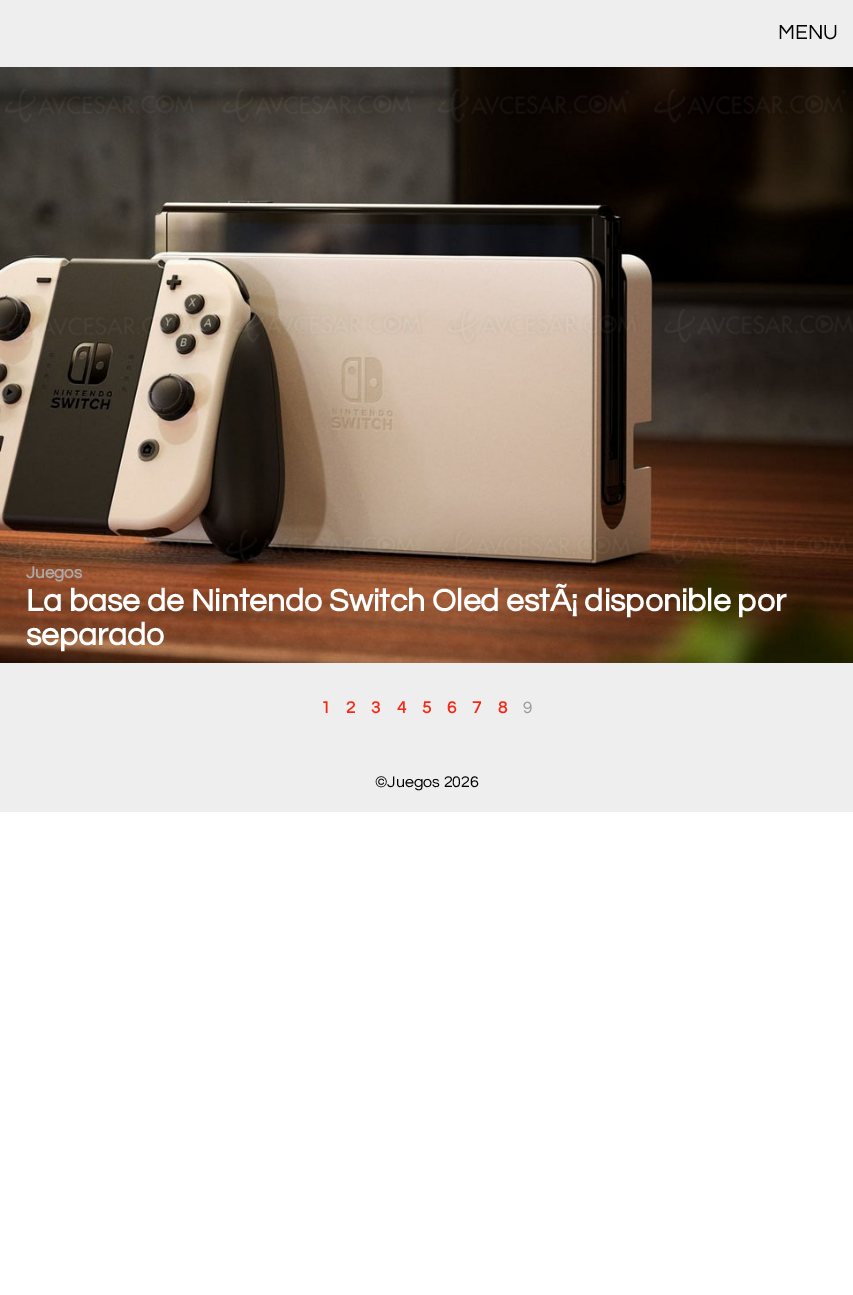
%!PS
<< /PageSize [853 1295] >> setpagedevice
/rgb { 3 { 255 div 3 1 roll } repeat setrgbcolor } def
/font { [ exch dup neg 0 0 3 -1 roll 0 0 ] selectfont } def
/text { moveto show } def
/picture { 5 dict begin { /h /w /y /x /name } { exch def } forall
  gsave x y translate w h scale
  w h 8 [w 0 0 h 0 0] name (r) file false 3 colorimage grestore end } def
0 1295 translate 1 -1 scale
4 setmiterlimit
255 255 255 rgb
0 0 853 1295 rectfill
238 238 238 rgb
0 0 853 67 rectfill
(img_01.rgb) 0 67 853 596 picture
0 663 853 149 rectfill
/Questrial-Regular 21 font
0 0 0 rgb
(MENU) 778 39 text
/Questrial-Bold 17 font
170 170 170 rgb
(Juegos) 26 578 text
/Questrial-Bold 32 font
255 255 255 rgb
(La base de Nintendo Switch Oled estÃ¡ disponible por) 26 611 text
(separado) 26 645 text
/Questrial-Bold 17 font
250 38 21 rgb
(1) 321 713 text
(2) 346 713 text
(3) 371 713 text
(4) 397 713 text
(5) 422 713 text
(6) 447 713 text
(7) 472 713 text
(8) 498 713 text
/Questrial-Regular 17 font
153 153 153 rgb
(9) 523 713 text
/Questrial-Regular 16 font
0 0 0 rgb
(©Juegos 2026) 375 787 text
showpage
